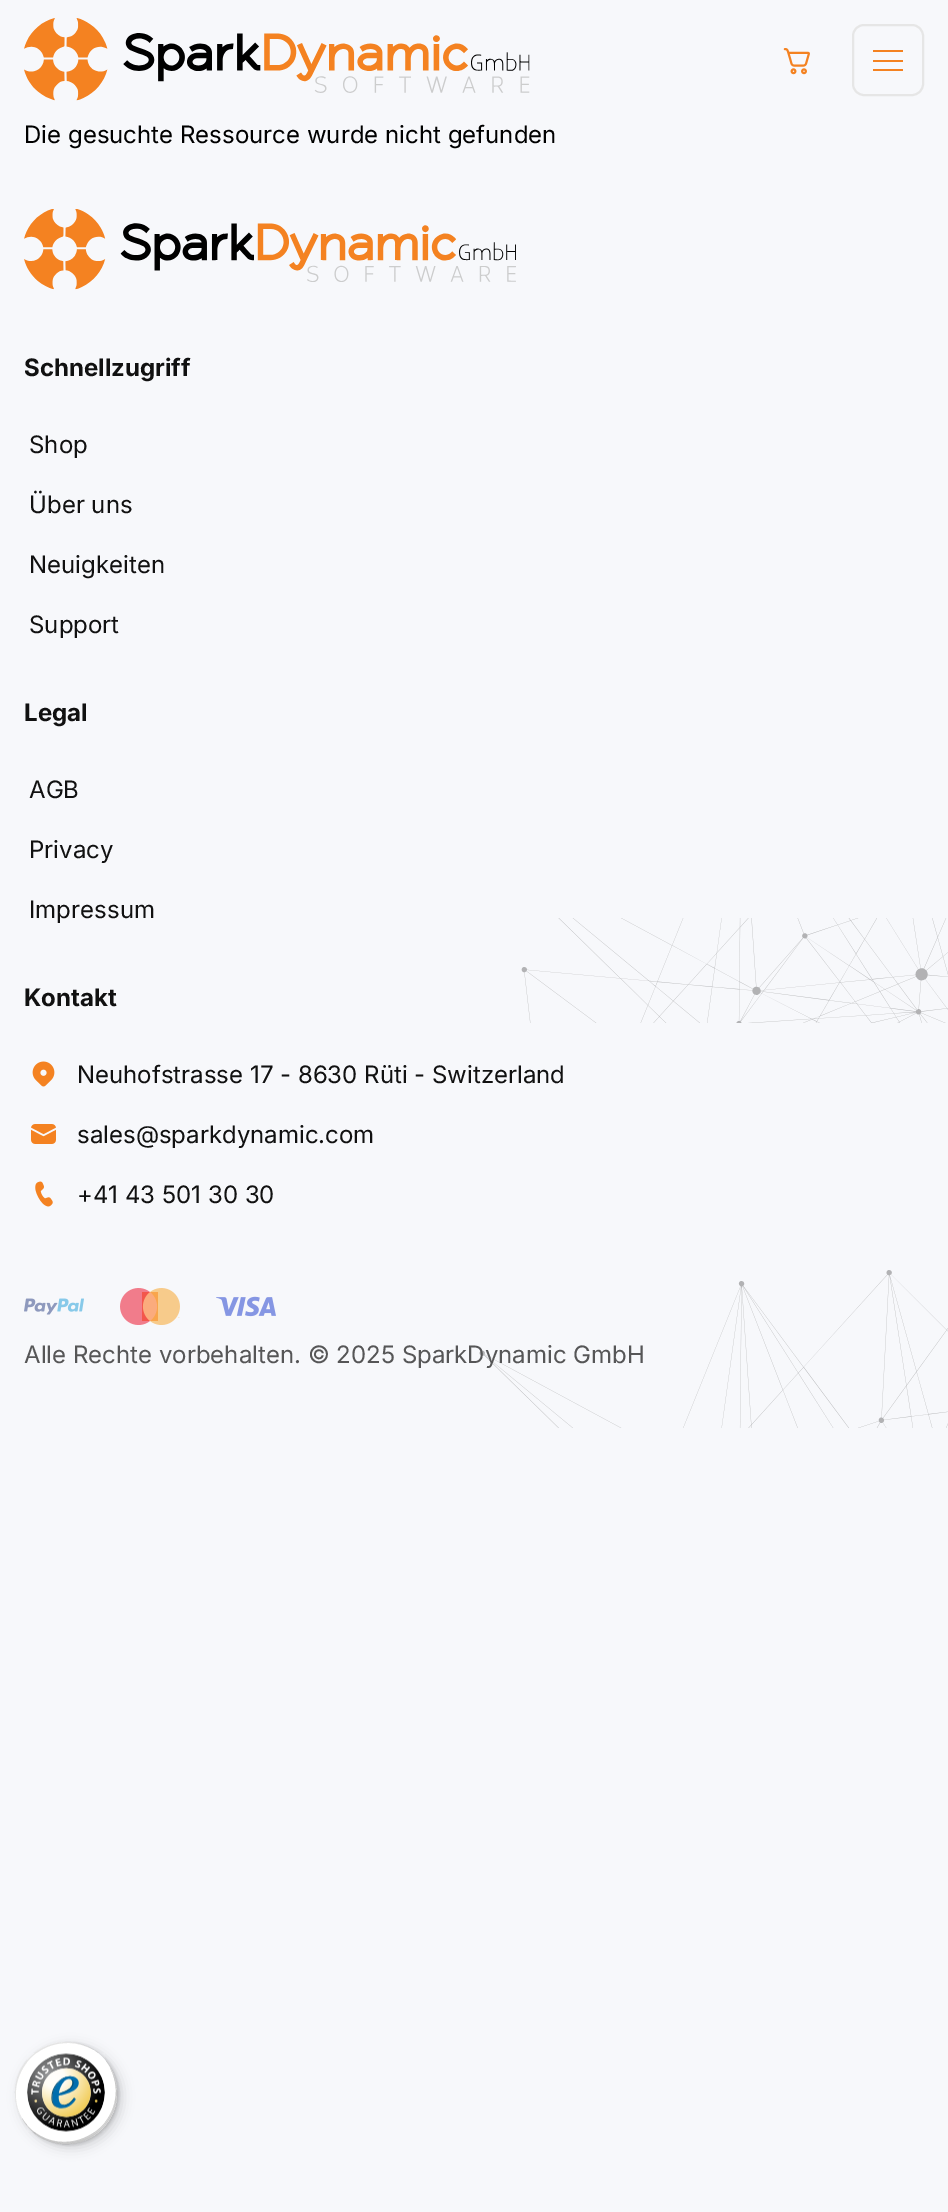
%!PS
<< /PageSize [948 2212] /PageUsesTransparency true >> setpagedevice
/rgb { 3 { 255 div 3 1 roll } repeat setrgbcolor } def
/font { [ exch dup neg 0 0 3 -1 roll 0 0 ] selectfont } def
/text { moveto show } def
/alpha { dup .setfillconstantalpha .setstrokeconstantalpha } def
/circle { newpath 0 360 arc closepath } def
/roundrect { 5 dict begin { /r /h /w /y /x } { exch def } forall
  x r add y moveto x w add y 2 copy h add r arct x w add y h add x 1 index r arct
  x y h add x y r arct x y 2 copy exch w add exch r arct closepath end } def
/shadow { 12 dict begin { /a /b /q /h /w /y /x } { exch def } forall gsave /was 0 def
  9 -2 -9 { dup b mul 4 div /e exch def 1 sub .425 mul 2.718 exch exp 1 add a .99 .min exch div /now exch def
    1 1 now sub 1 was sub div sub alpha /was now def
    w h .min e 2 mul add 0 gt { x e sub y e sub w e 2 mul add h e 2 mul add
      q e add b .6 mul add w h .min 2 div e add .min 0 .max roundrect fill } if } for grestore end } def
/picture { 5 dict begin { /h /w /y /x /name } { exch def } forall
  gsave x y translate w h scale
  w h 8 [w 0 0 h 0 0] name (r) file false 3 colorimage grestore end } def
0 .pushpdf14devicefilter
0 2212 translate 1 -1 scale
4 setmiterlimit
247 248 251 rgb
0 0 948 2212 rectfill
(img_01.rgb) 24 18 506 83 picture
(img_02.rgb) 783 48 27 27 picture
230 230 230 rgb
2 setlinewidth
853 25 70 70 11 roundrect stroke
244 130 33 rgb
873 50 30 2 rectfill
873 60 30 2 rectfill
873 69 30 2 rectfill
(img_03.rgb) 24 209 492 81 picture
(img_04.rgb) 32 1061 23 26 picture
(img_05.rgb) 31 1124 25 20 picture
(img_06.rgb) 35 1181 18 26 picture
(img_07.rgb) 24 1288 252 37 picture
(img_08.rgb) 479 918 469 510 picture
0 0 0 rgb
20 2046 102 102 51 6 0.15 shadow
17 2043 102 102 51 1.5 0.15 shadow
255 255 255 rgb
66 2093 51 circle fill
0.1 alpha
0 0 0 rgb
68 2043 moveto 10 0 18 3 26 7 rcurveto -23 -15 -55 -8 -70 14 rcurveto -16 23 -10 54 12 70 rcurveto -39 -29 -18 -91 32 -91 rcurveto closepath fill
0.2 alpha
22 2118 moveto 5 10 14 18 24 22 rcurveto 45 19 88 -31 64 -72 rcurveto 12 22 5 51 -17 65 rcurveto -24 16 -56 10 -71 -15 rcurveto closepath fill
50 50 50 rgb
27 2126 moveto 19 23 54 24 75 3 rcurveto 18 -18 20 -48 4 -68 rcurveto 6 8 9 17 10 27 rcurveto 4 49 -56 74 -89 38 rcurveto closepath fill
0.3 alpha
255 255 255 rgb
27 2126 moveto 19 23 54 24 75 3 rcurveto 21 -21 20 -56 -3 -75 rcurveto 22 20 23 53 2 74 rcurveto -21 21 -54 20 -74 -2 rcurveto closepath fill
1 alpha
(img_09.rgb) 27 2053 78 79 picture
/Inter-Regular 24 font
0 0 0 rgb
(Die gesuchte Ressource wurde nicht gefunden) 24 143 text
/Inter-Bold 24 font
17 17 17 rgb
(Schnellzugriff) 24 376 text
/Inter-Regular 24 font
(Shop) 29 453 text
(Über uns) 29 513 text
(Neuigkeiten) 29 573 text
(Support) 29 633 text
/Inter-Bold 24 font
(Legal) 24 721 text
/Inter-Regular 24 font
(AGB) 29 798 text
(Privacy) 29 858 text
(Impressum) 29 918 text
/Inter-Bold 24 font
(Kontakt) 24 1006 text
/Inter-Regular 24 font
(Neuhofstrasse 17 - 8630 Rüti - Switzerland) 77 1083 text
(sales@sparkdynamic.com) 77 1143 text
(+41 43 501 30 30) 77 1203 text
86 86 87 rgb
(Alle Rechte vorbehalten. © 2025 SparkDynamic GmbH) 24 1363 text
.poppdf14devicefilter showpage
